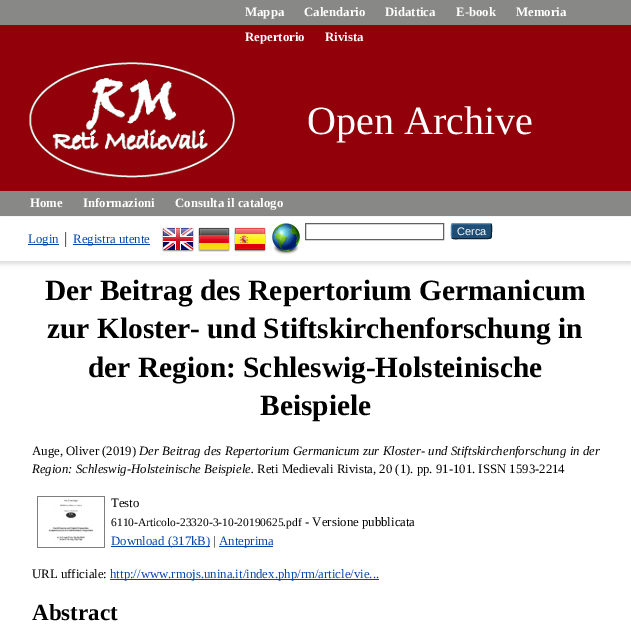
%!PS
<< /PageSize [631 636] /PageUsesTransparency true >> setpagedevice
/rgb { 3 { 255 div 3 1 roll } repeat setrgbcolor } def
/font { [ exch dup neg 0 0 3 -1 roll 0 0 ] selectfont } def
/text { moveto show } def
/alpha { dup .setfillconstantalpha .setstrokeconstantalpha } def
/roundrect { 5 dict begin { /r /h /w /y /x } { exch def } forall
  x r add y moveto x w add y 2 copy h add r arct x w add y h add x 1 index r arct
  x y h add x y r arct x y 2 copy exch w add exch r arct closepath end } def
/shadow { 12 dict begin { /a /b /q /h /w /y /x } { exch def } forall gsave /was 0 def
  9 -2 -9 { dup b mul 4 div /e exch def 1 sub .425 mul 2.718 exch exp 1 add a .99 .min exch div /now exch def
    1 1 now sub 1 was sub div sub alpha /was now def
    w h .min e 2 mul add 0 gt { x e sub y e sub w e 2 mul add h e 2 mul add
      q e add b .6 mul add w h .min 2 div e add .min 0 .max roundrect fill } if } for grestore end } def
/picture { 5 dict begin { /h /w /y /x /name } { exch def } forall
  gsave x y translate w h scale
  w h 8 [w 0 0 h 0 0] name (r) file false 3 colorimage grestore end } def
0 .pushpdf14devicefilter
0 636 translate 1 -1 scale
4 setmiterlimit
255 255 255 rgb
0 0 631 636 rectfill
146 0 10 rgb
0 25 631 166 rectfill
136 136 135 rgb
0 0 631 25 rectfill
(img_01.rgb) 29 62 206 116 picture
0 191 631 25 rectfill
100 100 100 rgb
0 219 631 44 0 3 0.3 shadow
255 255 255 rgb
0 217 631 44 rectfill
(img_02.rgb) 162 227 32 25 picture
(img_03.rgb) 198 227 32 25 picture
(img_04.rgb) 234 227 32 25 picture
(img_05.rgb) 272 223 28 32 picture
96 96 96 rgb
305.5 223.5 138 16 rectstroke
31 79 118 rgb
451 223 41 16 3 roundrect fill
91 151 199 rgb
452 224 moveto 2 -0.5 rlineto 35 0 rlineto 2 0.5 rlineto stroke
13 33 49 rgb
491 224 moveto 1 1.5 0.5 5.5 0.5 7 rcurveto 0 8.5 0.5 7.5 -8.5 7.5 rcurveto -23 0 rlineto -1 0 -6 1 -8 -0.5 rcurveto stroke
82 135 179 rgb
452 238 moveto -1 -1.5 -0.5 -5.5 -0.5 -7 rcurveto 0 -1.5 -0.5 -5.5 0.5 -7 rcurveto stroke
96 96 96 rgb
65 232 1 15 rectfill
6 69 173 rgb
28 244 31 1 rectfill
232 232 232 rgb
66 232 1 15 rectfill
6 69 173 rgb
73 244 77 1 rectfill
(img_06.rgb) 37 496 68 52 picture
111 546 99 1 rectfill
219 546 54 1 rectfill
110 579 269 1 rectfill
/LiberationSerif-Bold 12.8 font
255 255 255 rgb
(Mappa) 245 16 text
(Calendario) 304 16 text
(Didattica) 385 16 text
(E-book) 456 16 text
(Memoria) 516 16 text
(Repertorio) 245 41 text
(Rivista) 325 41 text
/LiberationSerif-Regular 40 font
(Open Archive) 307 134 text
/LiberationSerif-Bold 12.8 font
(Home) 30 207 text
(Informazioni) 83 207 text
(Consulta il catalogo) 175 207 text
/LiberationSans-Regular 11 font
(Cerca) 457 235 text
/LiberationSerif-Regular 12.8 font
6 69 173 rgb
(Login) 28 243 text
(Registra utente) 73 243 text
/LiberationSerif-Bold 29.4 font
0 0 0 rgb
(Der Beitrag des Repertorium Germanicum) 45 300 text
(zur Kloster- und Stiftskirchenforschung in) 47 338 text
(der Region: Schleswig-Holsteinische) 88 377 text
(Beispiele) 260 415 text
/LiberationSerif-Regular 12.8 font
(Auge, Oliver \(2019\)) 32 455 text
/LiberationSerif-Italic 12.8 font
139 455 moveto 0.25 0 32 (Der Beitrag des Repertorium Germanicum zur Kloster- und Stiftskirchenforschung in der) widthshow
(Region: Schleswig-Holsteinische Beispiele.) 32 473 text
/LiberationSerif-Regular 12.8 font
(Reti Medievali Rivista, 20 \(1\). pp. 91-101. ISSN 1593-2214) 257 473 text
(Testo) 111 507 text
/LiberationSerif-Regular 11.5 font
(6110-Articolo-23320-3-10-20190625.pdf) 111 526 text
/LiberationSerif-Regular 12.8 font
(- Versione pubblicata) 305 526 text
6 69 173 rgb
(Download \(317kB\)) 111 545 text
0 0 0 rgb
(|) 213 545 text
6 69 173 rgb
(Anteprima) 219 545 text
0 0 0 rgb
(URL ufficiale:) 32 578 text
6 69 173 rgb
(http://www.rmojs.unina.it/index.php/rm/article/vie...) 110 578 text
/LiberationSerif-Bold 23 font
0 0 0 rgb
(Abstract) 32 620 text
.poppdf14devicefilter showpage
